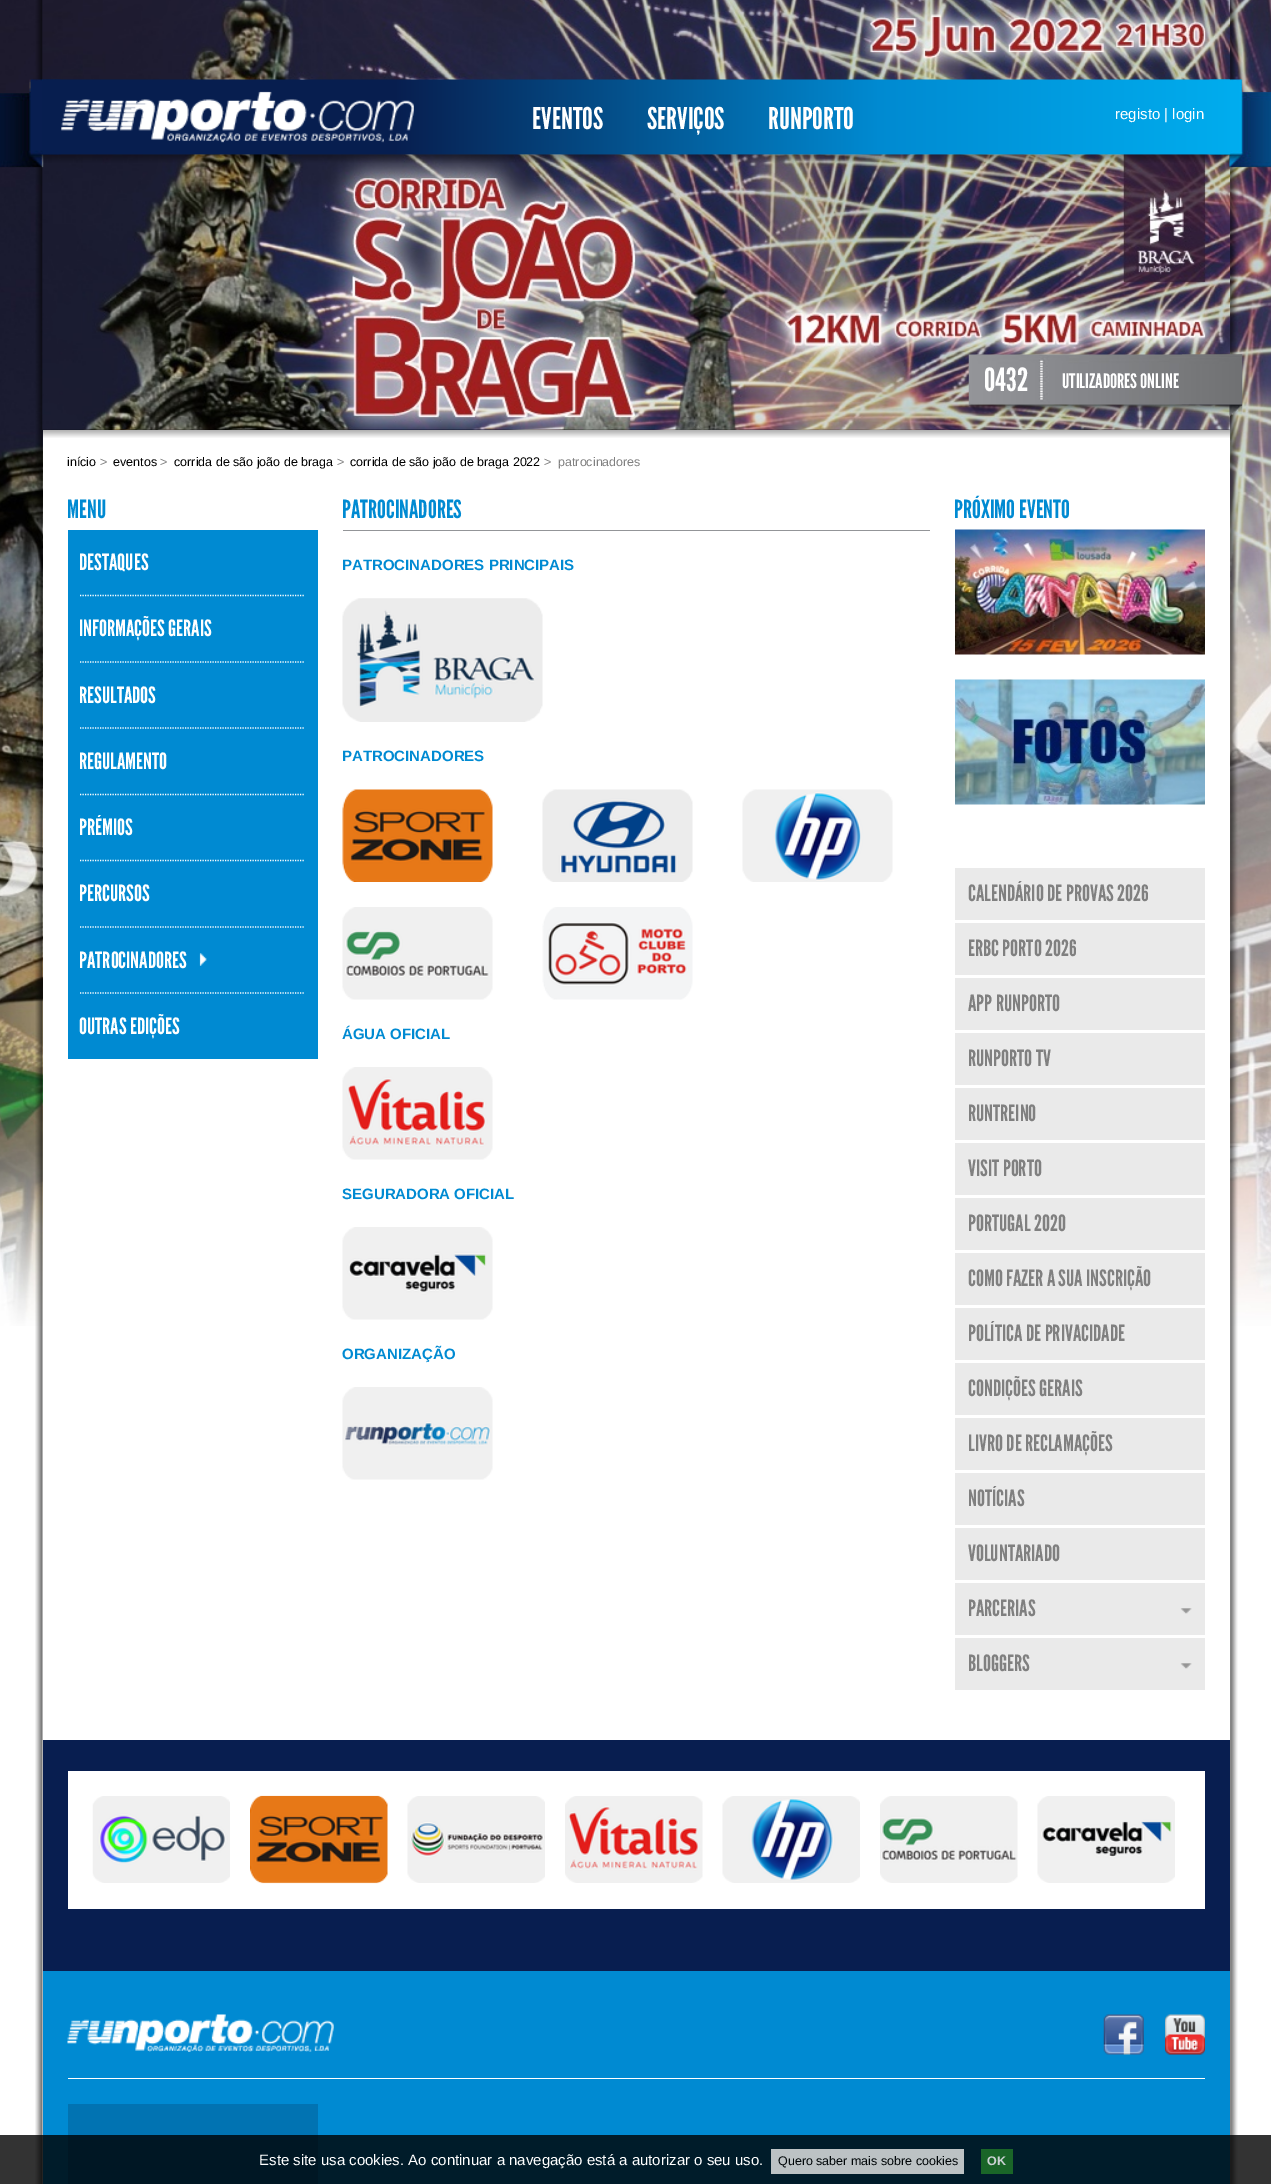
%!PS
<< /PageSize [1271 2184] /PageUsesTransparency true >> setpagedevice
/rgb { 3 { 255 div 3 1 roll } repeat setrgbcolor } def
/font { [ exch dup neg 0 0 3 -1 roll 0 0 ] selectfont } def
/text { moveto show } def
/alpha { dup .setfillconstantalpha .setstrokeconstantalpha } def
/picture { 5 dict begin { /h /w /y /x /name } { exch def } forall
  gsave x y translate w h scale
  w h 8 [w 0 0 h 0 0] name (r) file false 3 colorimage grestore end } def
0 .pushpdf14devicefilter
0 2184 translate 1 -1 scale
4 setmiterlimit
255 255 255 rgb
0 0 1271 2184 rectfill
(img_01.rgb) 0 0 1271 1326 picture
(img_03.rgb) 35 0 1203 2184 picture
(img_04.rgb) 42 0 1188 430 picture
(img_02.rgb) 0 79 1271 337 picture
(img_05.rgb) 42 79 1188 76 picture
(img_06.rgb) 61 91 353 52 picture
(img_07.rgb) 42 154 1188 9 picture
(img_08.rgb) 968 354 275 60 picture
43 430 1187 1310 rectfill
(img_09.rgb) 42 429 1188 9 picture
0 138 210 rgb
68 530 250 529 rectfill
255 255 255 rgb
1.2 setlinewidth
[1.25 1.25] 0 setdash
80 595.5 moveto 225 0 rlineto stroke
80 662 moveto 225 0 rlineto stroke
80 728 moveto 225 0 rlineto stroke
80 794.5 moveto 225 0 rlineto stroke
80 860.5 moveto 225 0 rlineto stroke
80 927 moveto 225 0 rlineto stroke
80 993 moveto 225 0 rlineto stroke
(img_10.rgb) 199 953 8 13 picture
147 149 152 rgb
343 530 587 1 rectfill
(img_11.rgb) 342 598 201 124 picture
(img_12.rgb) 342 789 151 93 picture
(img_13.rgb) 542 789 151 93 picture
(img_14.rgb) 742 789 151 93 picture
(img_15.rgb) 342 907 151 93 picture
(img_16.rgb) 542 907 151 93 picture
(img_17.rgb) 342 1067 151 93 picture
(img_18.rgb) 342 1227 151 93 picture
(img_19.rgb) 342 1387 151 93 picture
(img_20.rgb) 955 529 250 126 picture
(img_21.rgb) 955 679 250 126 picture
234 234 234 rgb
955 868 250 52 rectfill
955 923 250 52 rectfill
955 978 250 52 rectfill
955 1033 250 52 rectfill
955 1088 250 52 rectfill
955 1143 250 52 rectfill
955 1198 250 52 rectfill
955 1253 250 52 rectfill
955 1308 250 52 rectfill
955 1363 250 52 rectfill
955 1418 250 52 rectfill
955 1473 250 52 rectfill
955 1528 250 52 rectfill
955 1583 250 52 rectfill
(img_22.rgb) 1180 1608 12 6 picture
955 1638 250 52 rectfill
(img_22.rgb) 1180 1663 12 6 picture
8 30 80 rgb
43 1740 1187 231 rectfill
255 255 255 rgb
68 1771 1137 138 rectfill
(img_23.rgb) 92 1796 138 87 picture
(img_24.rgb) 250 1795 138 89 picture
(img_25.rgb) 407 1796 138 87 picture
(img_26.rgb) 565 1796 138 87 picture
(img_27.rgb) 722 1796 138 87 picture
(img_28.rgb) 880 1796 138 87 picture
(img_29.rgb) 1037 1796 138 87 picture
0 138 210 rgb
43 1971 1187 213 rectfill
(img_30.rgb) 67 2014 267 38 picture
255 255 255 rgb
68 2078 1137 1 rectfill
(img_31.rgb) 1103 2014 41 41 picture
(img_32.rgb) 1165 2014 40 41 picture
1 115 178 rgb
68 2104 250 80 rectfill
0.8 alpha
0 0 0 rgb
0 2135 1271 49 rectfill
1 alpha
188 194 196 rgb
771 2149 193 25 rectfill
26 101 40 rgb
981 2149 32 25 rectfill
/LeagueGothic-Regular 30 font
255 255 255 rgb
(EVENTOS) 532 129 text
(SERVIÇOS) 647 129 text
(RUNPORTO) 768 129 text
/LiberationSans-Regular 15 font
(registo | login) 1115 119 text
/LeagueGothic-Regular 32 font
(0432) 984 391 text
/LeagueGothic-Regular 20 font
(UTILIZADORES ONLINE) 1062 388 text
/LiberationSans-Regular 12.5 font
0 0 0 rgb
(início) 67 466 text
128 128 128 rgb
(>) 100 466 text
0 0 0 rgb
(eventos) 113 466 text
128 128 128 rgb
(>) 160 466 text
0 0 0 rgb
(corrida de são joão de braga) 174 466 text
128 128 128 rgb
(>) 337 466 text
0 0 0 rgb
(corrida de são joão de braga 2022) 350 466 text
128 128 128 rgb
(>) 544 466 text
(patrocinadores) 558 466 text
/LeagueGothic-Regular 25 font
0 138 210 rgb
(MENU) 67 518 text
/LeagueGothic-Regular 22.5 font
255 255 255 rgb
(DESTAQUES) 79 570 text
(INFORMAÇÕES GERAIS) 79 636 text
(RESULTADOS) 79 703 text
(REGULAMENTO) 79 769 text
(PRÉMIOS) 79 835 text
(PERCURSOS) 79 901 text
(PATROCINADORES) 79 968 text
(OUTRAS EDIÇÕES) 79 1034 text
/LeagueGothic-Regular 25 font
0 138 210 rgb
(PATROCINADORES) 342 518 text
/LiberationSans-Bold 15 font
(PATROCINADORES PRINCIPAIS) 342 570 text
(PATROCINADORES) 342 761 text
(ÁGUA OFICIAL) 342 1039 text
(SEGURADORA OFICIAL) 342 1199 text
(ORGANIZAÇÃO) 342 1359 text
/LeagueGothic-Regular 25 font
(PRÓXIMO EVENTO) 954 518 text
/LeagueGothic-Regular 22.5 font
128 128 128 rgb
(CALENDÁRIO DE PROVAS 2026) 968 901 text
(ERBC PORTO 2026) 968 956 text
(APP RUNPORTO) 968 1011 text
(RUNPORTO TV) 968 1066 text
(RUNTREINO) 968 1121 text
(VISIT PORTO) 968 1176 text
(PORTUGAL 2020) 968 1231 text
(COMO FAZER A SUA INSCRIÇÃO) 968 1286 text
(POLÍTICA DE PRIVACIDADE) 968 1341 text
(CONDIÇÕES GERAIS) 968 1396 text
(LIVRO DE RECLAMAÇÕES) 968 1451 text
(NOTÍCIAS) 968 1506 text
(VOLUNTARIADO) 968 1561 text
(PARCERIAS) 968 1616 text
(BLOGGERS) 968 1671 text
/LiberationSans-Regular 15 font
255 255 255 rgb
(Este site usa cookies. Ao continuar a navegação está a autorizar o seu uso.) 259 2165 text
/LiberationSans-Regular 12.5 font
0 6 8 rgb
(Quero saber mais sobre cookies) 778 2165 text
/LiberationSans-Bold 12.5 font
204 210 212 rgb
(OK) 987 2165 text
.poppdf14devicefilter showpage
